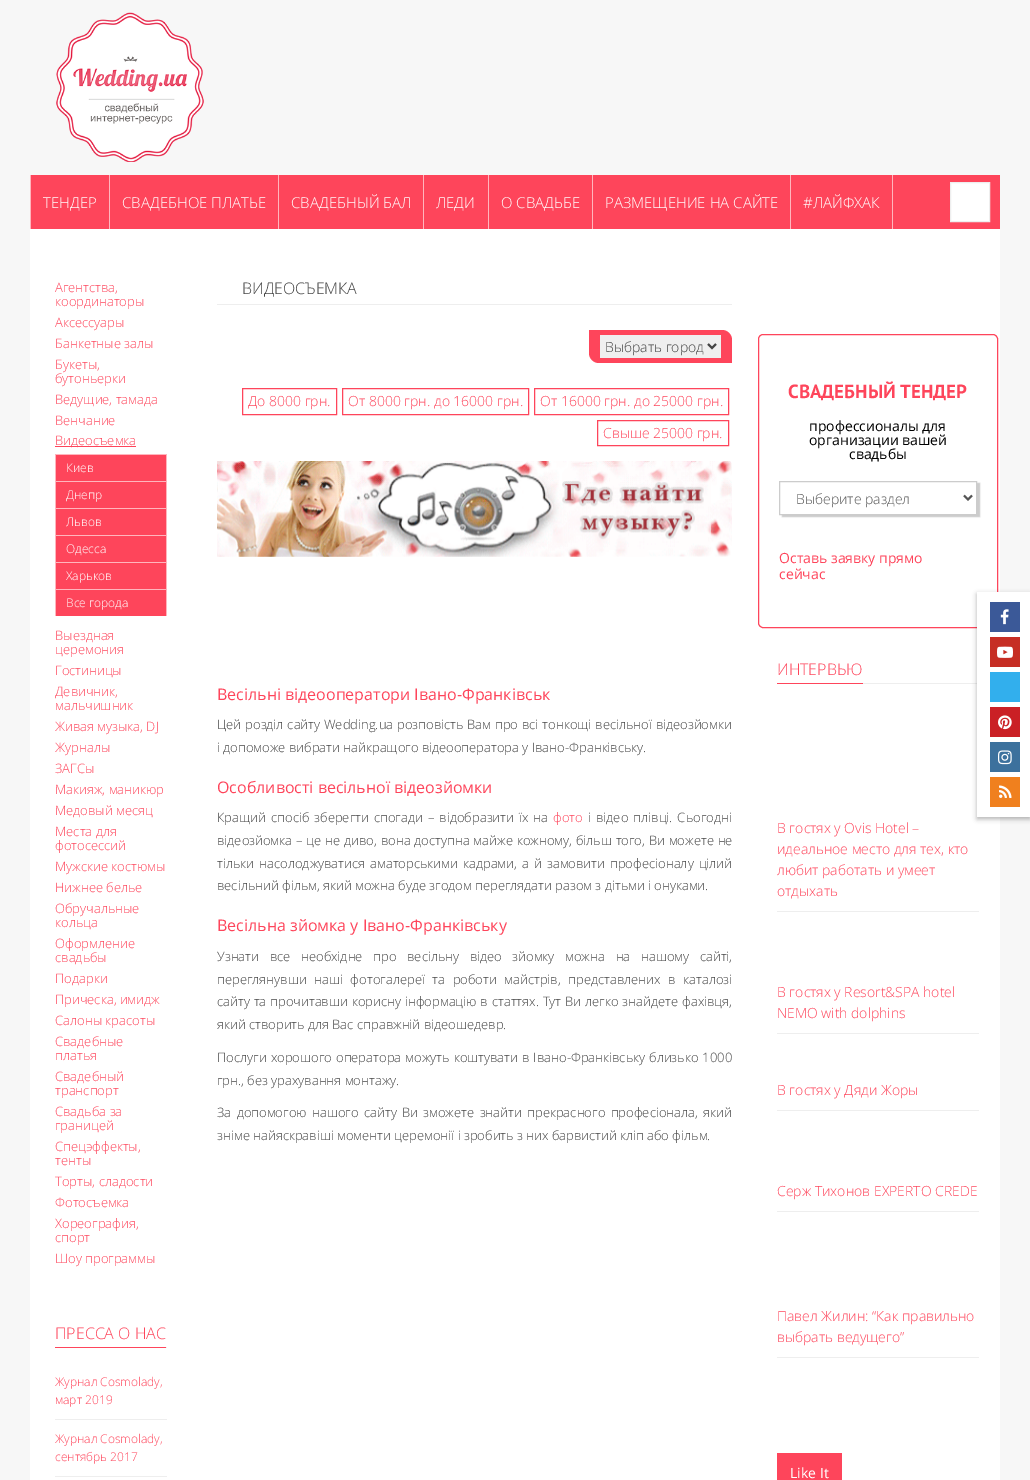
%!PS
<< /PageSize [1030 1480] /PageUsesTransparency true >> setpagedevice
/rgb { 3 { 255 div 3 1 roll } repeat setrgbcolor } def
/font { [ exch dup neg 0 0 3 -1 roll 0 0 ] selectfont } def
/text { moveto show } def
/alpha { dup .setfillconstantalpha .setstrokeconstantalpha } def
/roundrect { 5 dict begin { /r /h /w /y /x } { exch def } forall
  x r add y moveto x w add y 2 copy h add r arct x w add y h add x 1 index r arct
  x y h add x y r arct x y 2 copy exch w add exch r arct closepath end } def
/shadow { 12 dict begin { /a /b /q /h /w /y /x } { exch def } forall gsave /was 0 def
  9 -2 -9 { dup b mul 4 div /e exch def 1 sub .425 mul 2.718 exch exp 1 add a .99 .min exch div /now exch def
    1 1 now sub 1 was sub div sub alpha /was now def
    w h .min e 2 mul add 0 gt { x e sub y e sub w e 2 mul add h e 2 mul add
      q e add b .6 mul add w h .min 2 div e add .min 0 .max roundrect fill } if } for grestore end } def
/picture { 5 dict begin { /h /w /y /x /name } { exch def } forall
  gsave x y translate w h scale
  w h 8 [w 0 0 h 0 0] name (r) file false 3 colorimage grestore end } def
0 .pushpdf14devicefilter
0 1480 translate 1 -1 scale
4 setmiterlimit
247 247 247 rgb
0 0 1030 1480 rectfill
(img_01.rgb) 56 12 148 150 picture
254 69 91 rgb
31 175 969 54 rectfill
255 181 189 rgb
30 175 1 54 rectfill
109 175 1 54 rectfill
278 175 1 54 rectfill
423 175 1 54 rectfill
488 175 1 54 rectfill
592 175 1 54 rectfill
892 175 1 54 rectfill
790 175 1 54 rectfill
255 255 255 rgb
950.5 182.5 moveto 39 0 rlineto 0 39 rlineto -39 0 rlineto closepath gsave fill grestore
238 238 238 rgb
stroke
255 255 255 rgb
30 229 970 1251 rectfill
254 69 91 rgb
758.5 334.5 239 293 4.5 roundrect stroke
238 238 238 rgb
863 683 116 1 rectfill
0 0 0 rgb
977 594 53 225 0 2.5 0.3 shadow
255 255 255 rgb
977 592 53 225 rectfill
59 89 152 rgb
990 602 30 30 rectfill
(img_02.rgb) 1000 609 9 16 picture
198 46 36 rgb
990 637 30 30 rectfill
(img_03.rgb) 997 646 16 12 picture
50 175 237 rgb
990 672 30 30 rectfill
202 32 37 rgb
990 707 30 30 rectfill
(img_04.rgb) 998 715 14 15 picture
60 113 157 rgb
990 742 30 30 rectfill
(img_05.rgb) 998 750 14 15 picture
240 128 30 rgb
990 777 30 30 rectfill
(img_06.rgb) 999 785 13 13 picture
254 69 91 rgb
55 446 81 1 rectfill
55 454 112 162 rectfill
255 181 189 rgb
55 454 moveto 112 0 rlineto -1 1 rlineto -110 0 rlineto closepath fill
0.6 alpha
255 255 255 rgb
167 454 moveto 0 27 rlineto -1 0 rlineto 0 -26 rlineto closepath fill
55 481 moveto 0 -27 rlineto 1 1 rlineto 0 26 rlineto closepath fill
1 alpha
255 181 189 rgb
55 481 moveto 112 0 rlineto -1 1 rlineto -110 0 rlineto closepath fill
0.6 alpha
255 255 255 rgb
167 481 moveto 0 27 rlineto -1 0 rlineto 0 -26 rlineto closepath fill
55 508 moveto 0 -27 rlineto 1 1 rlineto 0 26 rlineto closepath fill
1 alpha
255 181 189 rgb
55 508 moveto 112 0 rlineto -1 1 rlineto -110 0 rlineto closepath fill
0.6 alpha
255 255 255 rgb
167 508 moveto 0 27 rlineto -1 0 rlineto 0 -26 rlineto closepath fill
55 535 moveto 0 -27 rlineto 1 1 rlineto 0 26 rlineto closepath fill
1 alpha
255 181 189 rgb
55 535 moveto 112 0 rlineto -1 1 rlineto -110 0 rlineto closepath fill
0.6 alpha
255 255 255 rgb
167 535 moveto 0 27 rlineto -1 0 rlineto 0 -26 rlineto closepath fill
55 562 moveto 0 -27 rlineto 1 1 rlineto 0 26 rlineto closepath fill
1 alpha
255 181 189 rgb
55 562 moveto 112 0 rlineto -1 1 rlineto -110 0 rlineto closepath fill
0.6 alpha
255 255 255 rgb
167 562 moveto 0 27 rlineto -1 0 rlineto 0 -26 rlineto closepath fill
55 589 moveto 0 -27 rlineto 1 1 rlineto 0 26 rlineto closepath fill
1 alpha
255 181 189 rgb
55 589 moveto 112 0 rlineto -1 1 rlineto -110 0 rlineto closepath fill
0.6 alpha
255 255 255 rgb
167 589 moveto 0 27 rlineto -1 0 rlineto 0 -26 rlineto closepath fill
55 616 moveto 0 -27 rlineto 1 1 rlineto 0 26 rlineto closepath fill
1 alpha
238 238 238 rgb
166 1347 1 1 rectfill
254 69 91 rgb
55 1347 111 1 rectfill
238 238 238 rgb
55 1419 112 1 rectfill
55 1476 112 1 rectfill
217 304 515 1 rectfill
254 69 91 rgb
589 330 moveto 133 0 rlineto 5.5 0 10 4.5 10 10 rcurveto 0 23 rlineto -133 0 rlineto -5.5 0 -10 -4.5 -10 -10 rcurveto closepath fill
239 239 239 rgb
600 335 121 23 rectfill
68 68 68 rgb
2 setlinewidth
708 344 moveto 4 4 rlineto 4 -4 rlineto stroke
254 69 91 rgb
1 setlinewidth
242.5 388.5 94 26 rectstroke
342.5 388.5 186 26 rectstroke
534.5 388.5 194 26 rectstroke
597.5 420.5 131 25 rectstroke
(img_07.rgb) 217 461 515 96 picture
gsave
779 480 moveto 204 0 rlineto 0 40 rlineto -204 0 rlineto closepath 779 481 moveto 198 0 rlineto 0 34 rlineto -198 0 rlineto closepath eoclip newpath
0 0 0 rgb
782 483 198 34 0 0.5 0.2 shadow
grestore
204 204 204 rgb
779.5 481.5 197 33 rectstroke
85 85 85 rgb
2 setlinewidth
964 495.5 moveto 4 4 rlineto 4 -4 rlineto stroke
254 69 91 rgb
777 683 86 1 rectfill
238 238 238 rgb
777 911 202 1 rectfill
777 1033 202 1 rectfill
777 1110 202 1 rectfill
777 1211 202 1 rectfill
777 1357 202 1 rectfill
254 69 91 rgb
777 1453 65 27 rectfill
/OpenSans-Light 15 font
255 255 255 rgb
(ТЕНДЕР) 43 208 text
(СВАДЕБНОЕ ПЛАТЬЕ) 122 208 text
(СВАДЕБНЫЙ БАЛ) 291 208 text
(ЛЕДИ) 436 208 text
(О СВАДЬБЕ) 501 208 text
(РАЗМЕЩЕНИЕ НА САЙТЕ) 605 208 text
(#ЛАЙФХАК) 803 208 text
/OpenSans-Light 13 font
254 69 91 rgb
(Агентства,) 55 292 text
(координаторы) 55 306 text
(Аксессуары) 55 327 text
(Банкетные залы) 55 348 text
(Букеты,) 55 369 text
(бутоньерки) 55 383 text
(Ведущие, тамада) 55 404 text
(Венчание) 55 425 text
(Видеосъемка) 55 445 text
/OpenSans-Light 12 font
255 255 255 rgb
(Киев) 66 472 text
(Днепр) 66 499 text
(Львов) 66 526 text
(Одесса) 66 553 text
(Харьков) 66 580 text
(Все города) 66 607 text
/OpenSans-Light 13 font
254 69 91 rgb
(Выездная) 55 640 text
(церемония) 55 654 text
(Гостиницы) 55 675 text
(Девичник,) 55 696 text
(мальчишник) 55 710 text
(Живая музыка, DJ) 55 731 text
(Журналы) 55 752 text
(ЗАГСы) 55 773 text
(Макияж, маникюр) 55 794 text
(Медовый месяц) 55 815 text
(Места для) 55 836 text
(фотосессий) 55 850 text
(Мужские костюмы) 55 871 text
(Нижнее белье) 55 892 text
(Обручальные) 55 913 text
(кольца) 55 927 text
(Оформление) 55 948 text
(свадьбы) 55 962 text
(Подарки) 55 983 text
(Прическа, имидж) 55 1004 text
(Салоны красоты) 55 1025 text
(Свадебные) 55 1046 text
(платья) 55 1060 text
(Свадебный) 55 1081 text
(транспорт) 55 1095 text
(Свадьба за) 55 1116 text
(границей) 55 1130 text
(Спецэффекты,) 55 1151 text
(тенты) 55 1165 text
(Торты, сладости) 55 1186 text
(Фотосъемка) 55 1207 text
(Хореография,) 55 1228 text
(спорт) 55 1242 text
(Шоу программы) 55 1263 text
/OpenSans-Light 16 font
(ПРЕССА О НАС) 55 1339 text
/OpenSans-Light 12 font
(Журнал Cosmolady,) 55 1386 text
(март 2019) 55 1404 text
(Журнал Cosmolady,) 55 1443 text
(сентябрь 2017) 55 1461 text
/OpenSans-Light 16 font
68 68 68 rgb
(ВИДЕОСЪЕМКА) 242 294 text
/OpenSans-Light 14 font
(Выбрать город) 605 352 text
254 69 91 rgb
(До 8000 грн.) 248 406 text
(От 8000 грн. до 16000 грн.) 348 406 text
(От 16000 грн. до 25000 грн.) 540 406 text
(Свыше 25000 грн.) 603 438 text
/OpenSans-Regular 16 font
(Весільні відеооператори Івано-Франківськ) 217 700 text
/OpenSans-Light 13 font
68 68 68 rgb
217 729 moveto 0.5 0 32 (Цей розділ сайту Wedding.ua розповість Вам про всі тонкощі весільної відеозйомки) widthshow
(і допоможе вибрати найкращого відеооператора у Івано-Франківську.) 217 752 text
/OpenSans-Regular 16 font
254 69 91 rgb
(Особливості весільної відеозйомки) 217 793 text
/OpenSans-Light 13 font
68 68 68 rgb
217 822 moveto 1.75 0 32 (Кращий спосіб зберегти спогади – відобразити їх на) widthshow
254 69 91 rgb
(фото) 553 822 text
68 68 68 rgb
588 822 moveto 1.75 0 32 (і відео плівці. Сьогодні) widthshow
217 845 moveto 0.5 0 32 (відеозйомка – це не диво, вона доступна майже кожному, більш того, Ви можете не) widthshow
217 868 moveto 1.75 0 32 (тільки насолоджуватися аматорськими кадрами, а й замовити професіоналу цілий) widthshow
(весільний фільм, який можна буде згодом переглядати разом з дітьми і онуками.) 217 890 text
/OpenSans-Regular 16 font
254 69 91 rgb
(Весільна зйомка у Івано-Франківську) 217 931 text
/OpenSans-Light 13 font
68 68 68 rgb
217 961 moveto 7.25 0 32 (Узнати все необхідне про весільну відео зйомку можна на нашому сайті,) widthshow
217 984 moveto 4.25 0 32 (переглянувши наші фотогалереї та роботи майстрів, представлених в каталозі) widthshow
217 1006 moveto 0.6 0 32 (сайту та прочитавши корисну інформацію в статтях. Тут Ви легко знайдете фахівця,) widthshow
(який створить для Вас справжній відеошедевр.) 217 1029 text
217 1062 moveto 0.75 0 32 (Послуги хорошого оператора можуть коштувати в Івано-Франківську близько 1000) widthshow
(грн., без урахування монтажу.) 217 1085 text
217 1117 moveto 2 0 32 (За допомогою нашого сайту Ви зможете знайти прекрасного професіонала, який) widthshow
(зніме найяскравіші моменти церемонії і зробить з них барвистий кліп або фільм.) 217 1140 text
/PTSans-Bold 19 font
254 69 91 rgb
(СВАДЕБНЫЙ ТЕНДЕР) 788 398 text
/OpenSans-Regular 14 font
0 0 0 rgb
(профессионалы для) 809 431 text
(организации вашей) 809 445 text
(свадьбы) 849 459 text
/OpenSans-Light 14 font
85 85 85 rgb
(Выберите раздел) 796 504 text
/OpenSans-Regular 14 font
254 69 91 rgb
(Оставь заявку прямо) 779 563 text
(сейчас) 779 579 text
/OpenSans-Light 16 font
(ИНТЕРВЬЮ) 777 675 text
/OpenSans-Light 14 font
(В гостях у Ovis Hotel –) 777 833 text
(идеальное место для тех, кто) 777 854 text
(любит работать и умеет) 777 875 text
(отдыхать) 777 896 text
(В гостях у Resort&SPA hotel) 777 997 text
(NEMO with dolphins) 777 1018 text
(В гостях у Дяди Жоры) 777 1095 text
(Серж Тихонов EXPERTO CREDE) 777 1196 text
(Павел Жилин: “Как правильно) 777 1321 text
(выбрать ведущего”) 777 1342 text
/OpenSans-Regular 14 font
255 255 255 rgb
(Like It) 790 1478 text
.poppdf14devicefilter showpage
